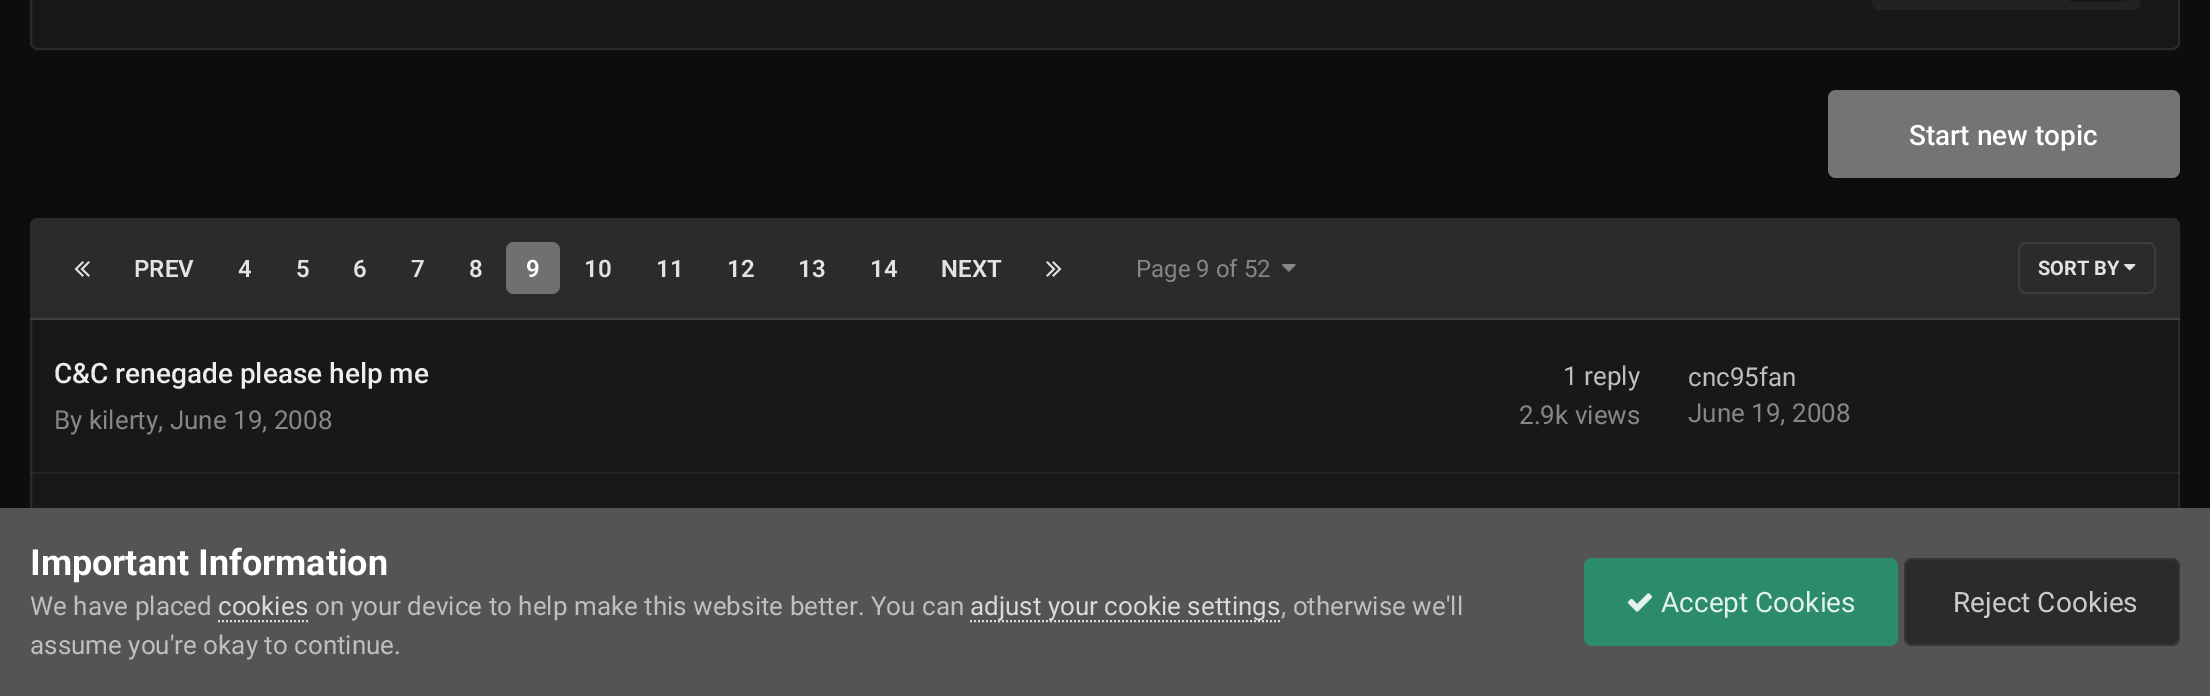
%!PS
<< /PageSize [2210 696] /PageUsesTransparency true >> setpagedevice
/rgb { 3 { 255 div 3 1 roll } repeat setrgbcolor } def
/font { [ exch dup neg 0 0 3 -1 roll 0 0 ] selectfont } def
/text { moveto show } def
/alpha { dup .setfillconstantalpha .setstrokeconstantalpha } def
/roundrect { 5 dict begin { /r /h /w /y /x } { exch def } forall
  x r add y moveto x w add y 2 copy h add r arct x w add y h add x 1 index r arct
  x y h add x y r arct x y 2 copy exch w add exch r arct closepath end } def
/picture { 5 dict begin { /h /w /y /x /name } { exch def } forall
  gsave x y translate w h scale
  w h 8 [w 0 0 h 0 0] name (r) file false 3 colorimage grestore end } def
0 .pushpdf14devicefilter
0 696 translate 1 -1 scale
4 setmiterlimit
13 13 13 rgb
0 0 2210 696 rectfill
24 24 24 rgb
30 -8 2150 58 8 roundrect fill
0.08 alpha
255 255 255 rgb
2 setlinewidth
31 -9 2148 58 7 roundrect stroke
1 alpha
34 34 34 rgb
1872 -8 268 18 8 roundrect fill
24 24 24 rgb
2066 -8 64 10 8 roundrect fill
116 116 116 rgb
1828 90 352 88 8 roundrect fill
24 24 24 rgb
30 218 2150 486 8 roundrect fill
0.08 alpha
255 255 255 rgb
31 219 2148 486 7 roundrect stroke
1 alpha
43 43 43 rgb
38 218 moveto 2134 0 rlineto 4.5 0 8 3.5 8 8 rcurveto 0 94 rlineto -2150 0 rlineto 0 -94 rlineto 0 -4.5 3.5 -8 8 -8 rcurveto closepath fill
65 65 65 rgb
30 318 2150 2 rectfill
(img_01.rgb) 74 261 16 16 picture
112 112 112 rgb
506 242 54 52 8 roundrect fill
(img_02.rgb) 1046 261 16 16 picture
(img_03.rgb) 1282 264 14 8 picture
(img_04.rgb) 2124 264 12 7 picture
61 61 61 rgb
2019 243 136 50 7 roundrect stroke
0.1 alpha
135 135 135 rgb
30 472 2150 2 rectfill
1 alpha
84 84 84 rgb
0 508 2210 188 rectfill
218 218 218 rgb
[2 2] 0 setdash
218 621 moveto 90 0 rlineto stroke
970 621 moveto 310 0 rlineto stroke
44 140 105 rgb
1584 558 314 88 8 roundrect fill
(img_05.rgb) 1627 593 26 19 picture
43 43 43 rgb
1904 558 276 88 8 roundrect fill
0.07 alpha
204 204 204 rgb
[] 0 setdash
1905 559 274 86 7 roundrect stroke
/Roboto-Medium 28 font
1 alpha
255 255 255 rgb
(Start new topic) 1909 145 text
/Roboto-SemiBold 24 font
227 227 227 rgb
(PREV) 134 277 text
(4) 238 277 text
(5) 296 277 text
(6) 353 277 text
(7) 411 277 text
(8) 469 277 text
255 255 255 rgb
(9) 526 277 text
227 227 227 rgb
(10) 584 277 text
(11) 656 277 text
(12) 727 277 text
(13) 798 277 text
(14) 870 277 text
(NEXT) 941 277 text
/Roboto-Regular 24 font
135 135 135 rgb
(Page 9 of 52) 1136 277 text
/Roboto-Bold 20 font
227 227 227 rgb
(SORT BY) 2038 275 text
/Roboto-Medium 28 font
237 237 237 rgb
(C&C renegade please help me) 54 383 text
/Roboto-Regular 26 font
135 135 135 rgb
(By kilerty, June 19, 2008) 54 429 text
191 191 191 rgb
(1 reply) 1563 385 text
135 135 135 rgb
(2.9k views) 1519 424 text
191 191 191 rgb
(cnc95fan) 1688 386 text
135 135 135 rgb
(June 19, 2008) 1688 422 text
/Roboto-Bold 36 font
255 255 255 rgb
(Important Information) 30 575 text
/Roboto-Regular 26 font
191 191 191 rgb
(We have placed) 30 615 text
218 218 218 rgb
(cookies) 218 615 text
191 191 191 rgb
(on your device to help make this website better. You can) 315 615 text
218 218 218 rgb
(adjust your cookie settings) 970 615 text
191 191 191 rgb
(, otherwise we'll) 1281 615 text
(assume you're okay to continue.) 30 654 text
/Roboto-Regular 28 font
227 243 236 rgb
(Accept Cookies) 1661 612 text
204 204 204 rgb
(Reject Cookies) 1953 612 text
.poppdf14devicefilter showpage
